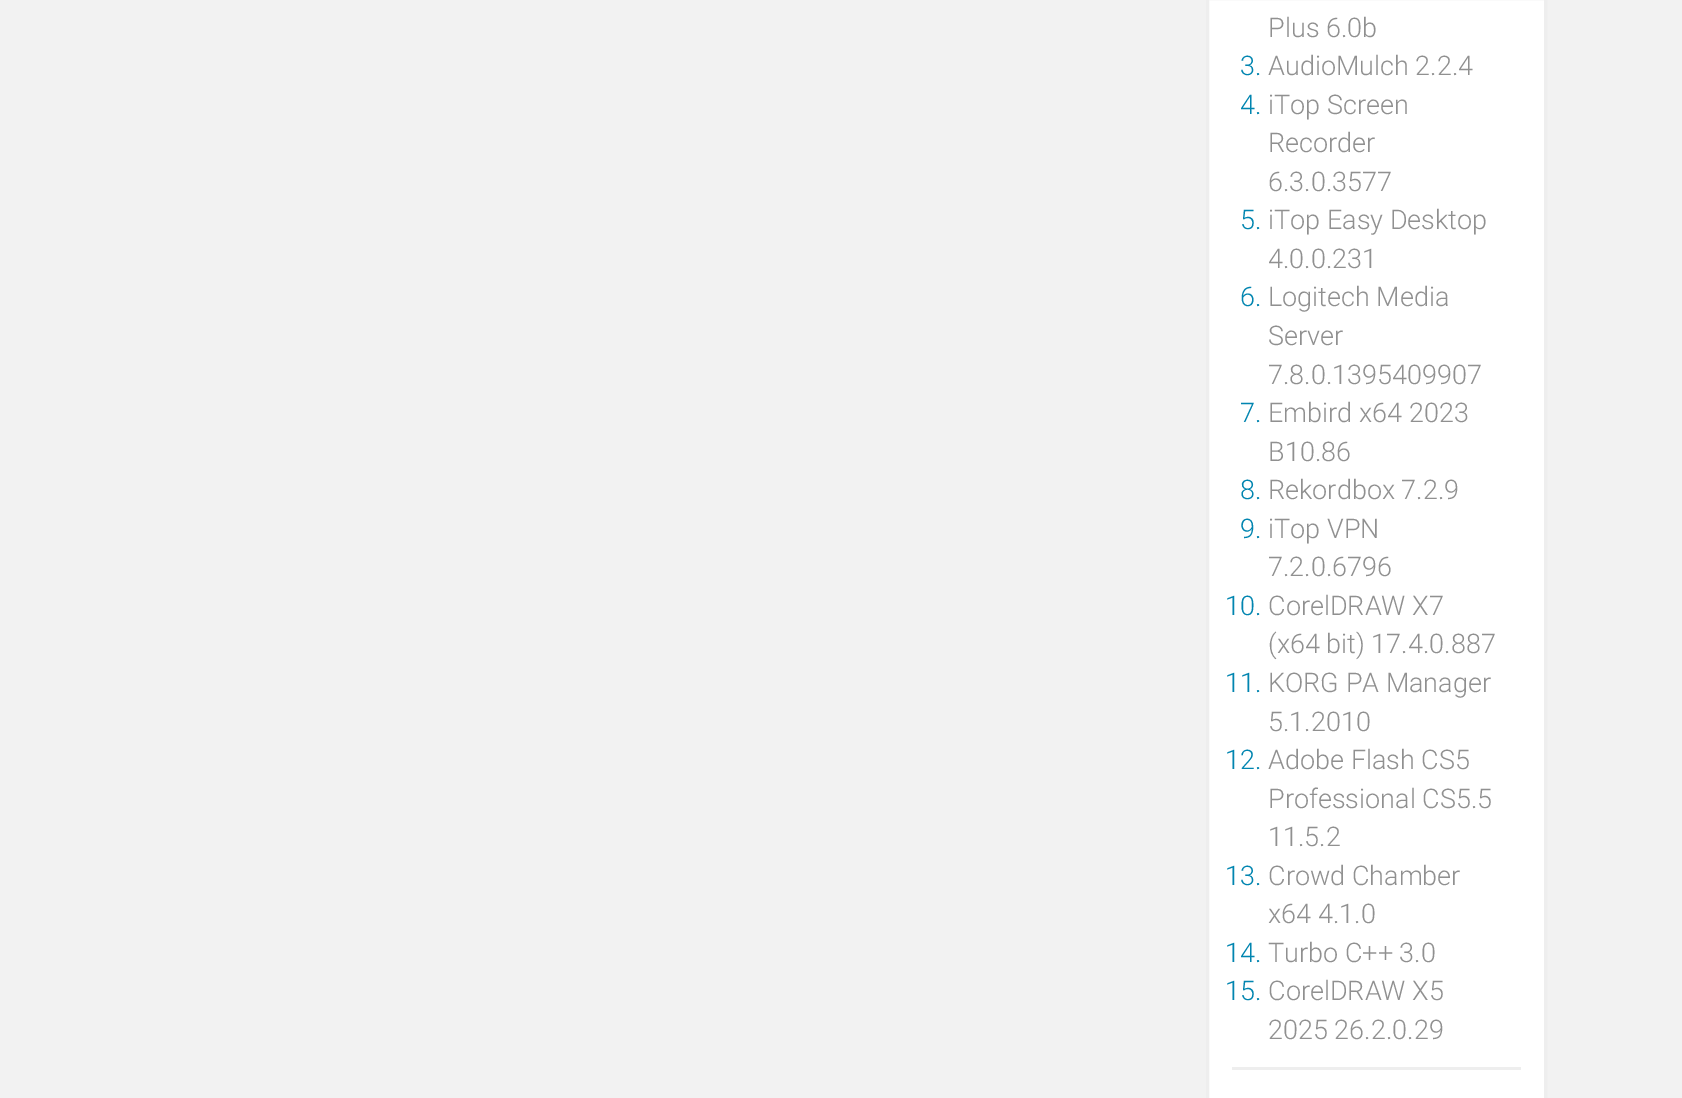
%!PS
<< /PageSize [1682 1098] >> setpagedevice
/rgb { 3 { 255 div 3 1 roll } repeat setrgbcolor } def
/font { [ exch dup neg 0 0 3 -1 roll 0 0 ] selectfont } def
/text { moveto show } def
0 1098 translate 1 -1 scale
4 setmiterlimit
242 242 242 rgb
0 0 1682 1098 rectfill
255 255 255 rgb
1207.5 -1.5 moveto 338 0 rlineto 0 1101 rlineto -338 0 rlineto closepath gsave fill grestore
238 238 238 rgb
3 setlinewidth
stroke
1232 1067 289 3 rectfill
/Roboto-Light 27 font
144 144 144 rgb
(Plus 6.0b) 1268 37 text
1 133 176 rgb
(3.) 1240 75 text
144 144 144 rgb
(AudioMulch 2.2.4) 1268 75 text
1 133 176 rgb
(4.) 1240 114 text
144 144 144 rgb
(iTop Screen) 1268 114 text
(Recorder) 1268 152 text
(6.3.0.3577) 1268 191 text
1 133 176 rgb
(5.) 1240 229 text
144 144 144 rgb
(iTop Easy Desktop) 1268 229 text
(4.0.0.231) 1268 268 text
1 133 176 rgb
(6.) 1240 306 text
144 144 144 rgb
(Logitech Media) 1268 306 text
(Server) 1268 345 text
(7.8.0.1395409907) 1268 384 text
1 133 176 rgb
(7.) 1240 422 text
144 144 144 rgb
(Embird x64 2023) 1268 422 text
(B10.86) 1268 461 text
1 133 176 rgb
(8.) 1240 499 text
144 144 144 rgb
(Rekordbox 7.2.9) 1268 499 text
1 133 176 rgb
(9.) 1240 538 text
144 144 144 rgb
(iTop VPN) 1268 538 text
(7.2.0.6796) 1268 576 text
1 133 176 rgb
(10.) 1225 615 text
144 144 144 rgb
(CorelDRAW X7) 1268 615 text
(\(x64 bit\) 17.4.0.887) 1268 653 text
1 133 176 rgb
(11.) 1225 692 text
144 144 144 rgb
(KORG PA Manager) 1268 692 text
(5.1.2010) 1268 731 text
1 133 176 rgb
(12.) 1225 769 text
144 144 144 rgb
(Adobe Flash CS5) 1268 769 text
(Professional CS5.5) 1268 808 text
(11.5.2) 1268 846 text
1 133 176 rgb
(13.) 1225 885 text
144 144 144 rgb
(Crowd Chamber) 1268 885 text
(x64 4.1.0) 1268 923 text
1 133 176 rgb
(14.) 1225 962 text
144 144 144 rgb
(Turbo C++ 3.0) 1268 962 text
1 133 176 rgb
(15.) 1225 1000 text
144 144 144 rgb
(CorelDRAW X5) 1268 1000 text
(2025 26.2.0.29) 1268 1039 text
showpage
